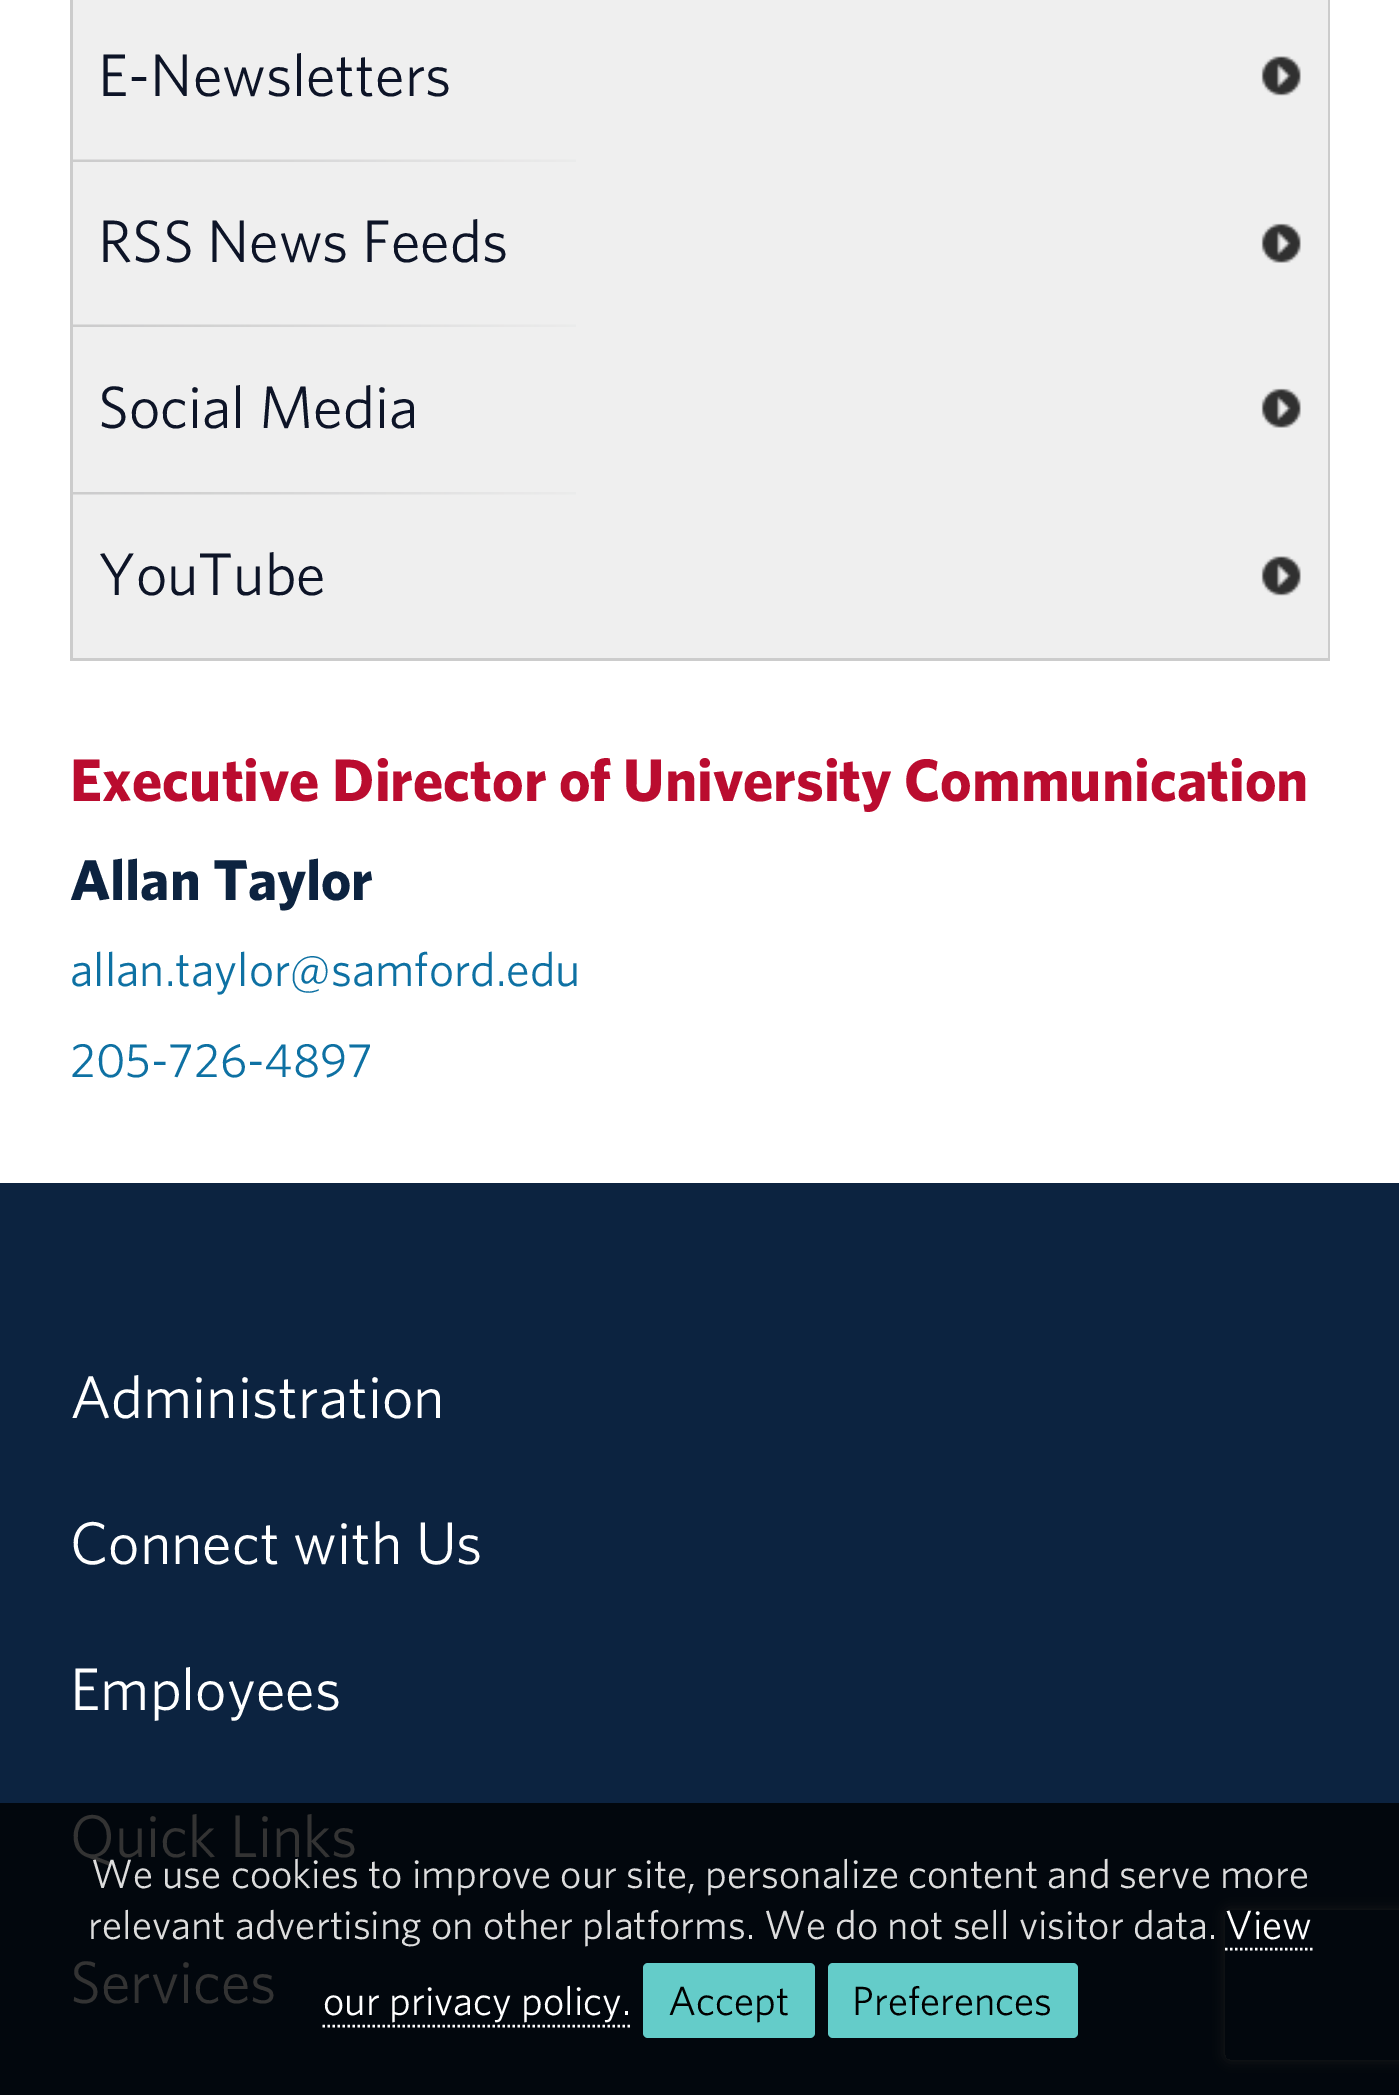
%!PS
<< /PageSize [1399 2095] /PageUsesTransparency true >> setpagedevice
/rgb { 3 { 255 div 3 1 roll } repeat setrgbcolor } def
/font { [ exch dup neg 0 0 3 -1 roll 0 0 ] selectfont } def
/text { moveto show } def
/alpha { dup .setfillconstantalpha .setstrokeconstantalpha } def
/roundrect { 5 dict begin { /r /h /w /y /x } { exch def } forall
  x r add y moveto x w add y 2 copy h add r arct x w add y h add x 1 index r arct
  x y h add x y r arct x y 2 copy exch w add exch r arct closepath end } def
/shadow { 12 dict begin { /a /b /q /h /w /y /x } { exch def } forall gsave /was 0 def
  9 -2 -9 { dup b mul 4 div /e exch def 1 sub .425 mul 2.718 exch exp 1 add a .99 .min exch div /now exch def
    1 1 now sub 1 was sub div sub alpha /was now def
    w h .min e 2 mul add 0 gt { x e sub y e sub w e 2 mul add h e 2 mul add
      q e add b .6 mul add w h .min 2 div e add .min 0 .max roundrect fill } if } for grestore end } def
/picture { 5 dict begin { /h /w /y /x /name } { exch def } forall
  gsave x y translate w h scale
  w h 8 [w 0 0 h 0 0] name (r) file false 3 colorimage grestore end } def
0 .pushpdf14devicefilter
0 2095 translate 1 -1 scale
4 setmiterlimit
255 255 255 rgb
0 0 1399 2095 rectfill
239 239 239 rgb
73 0 1255 658 rectfill
204 204 204 rgb
1328 0 2 660 rectfill
70 658 1260 3 rectfill
70 0 3 660 rectfill
(img_01.rgb) 1261 56 40 40 picture
(img_02.rgb) 73 159 503 3 picture
(img_03.rgb) 1261 223 40 40 picture
(img_02.rgb) 73 324 503 3 picture
(img_03.rgb) 1261 388 40 40 picture
(img_04.rgb) 73 492 503 3 picture
(img_01.rgb) 1261 556 40 40 picture
12 35 64 rgb
0 1183 1399 620 rectfill
2 7 13 rgb
0 1803 1399 292 rectfill
gsave
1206 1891 moveto 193 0 rlineto 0 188 rlineto -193 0 rlineto closepath 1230 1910 moveto 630 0 rlineto 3 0 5 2 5 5 rcurveto 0 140 rlineto 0 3 -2 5 -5 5 rcurveto -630 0 rlineto -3 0 -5 -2 -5 -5 rcurveto 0 -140 rlineto 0 -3 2 -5 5 -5 rcurveto closepath eoclip newpath
26 26 26 rgb
1225 1910 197 150 5 6 1 shadow
grestore
255 255 255 rgb
2.5 setlinewidth
[2.5 2.5] 0 setdash
1225 1949 moveto 87.5 0 rlineto stroke
322.5 2026 moveto 307.5 0 rlineto stroke
100 204 201 rgb
643 1963 172 75 5 roundrect fill
828 1963 250 75 5 roundrect fill
/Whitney-Regular 60 font
13 20 39 rgb
(E-Newsletters) 98 96 text
(RSS News Feeds) 98 262 text
(Social Media) 98 428 text
(YouTube) 98 595 text
/Whitney-Bold 60 font
186 12 47 rgb
(Executive Director of University Communication) 70 801 text
/Whitney-Bold 57.5 font
12 35 64 rgb
(Allan Taylor) 70 900 text
/Whitney-Regular 48 font
14 113 163 rgb
(allan.taylor@samford.edu) 70 986 text
(205-726-4897) 70 1077 text
/Whitney-Regular 60 font
255 255 255 rgb
(Administration) 70 1418 text
(Connect with Us) 70 1564 text
(Employees) 70 1710 text
51 51 51 rgb
(Quick Links) 70 1857 text
(Services) 70 2003 text
/Whitney-Regular 40.8 font
221 221 221 rgb
(We use cookies to improve our site, personalize content and serve more) 91 1888 text
(relevant advertising on other platforms. We do not sell visitor data.) 88 1939 text
255 255 255 rgb
(View) 1225 1939 text
(our privacy policy.) 323 2015 text
0 0 0 rgb
(Accept) 668 2015 text
(Preferences) 852 2015 text
.poppdf14devicefilter showpage
